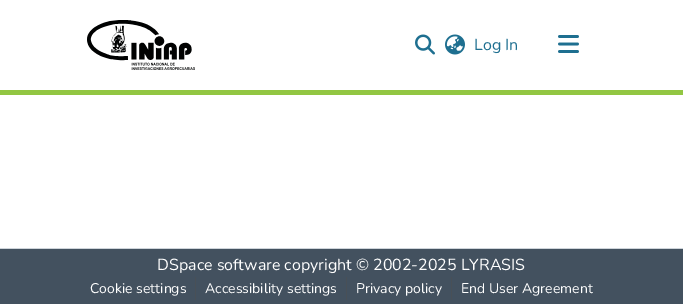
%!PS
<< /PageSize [683 304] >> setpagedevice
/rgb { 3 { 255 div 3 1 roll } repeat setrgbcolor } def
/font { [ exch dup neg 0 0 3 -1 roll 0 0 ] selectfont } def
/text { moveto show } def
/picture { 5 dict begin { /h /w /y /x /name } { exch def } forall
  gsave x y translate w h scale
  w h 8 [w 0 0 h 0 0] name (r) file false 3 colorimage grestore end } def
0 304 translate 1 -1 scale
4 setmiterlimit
255 255 255 rgb
0 0 683 304 rectfill
146 198 66 rgb
0 90 683 5 rectfill
(img_01.rgb) 87 20 108 50 picture
(img_02.rgb) 415 34 20 21 picture
(img_03.rgb) 445 34 20 21 picture
(img_04.rgb) 558 35 21 18 picture
67 81 95 rgb
0 249 683 55 rectfill
206 212 218 rgb
0 248 683 1 rectfill
73 80 87 rgb
195 277 1 23 rectfill
346 277 1 23 rectfill
451 277 1 23 rectfill
/Nunito-Regular 16 font
30 111 144 rgb
(Log In) 474 50 text
255 255 255 rgb
(DSpace software copyright © 2002-2025 LYRASIS) 157 270 text
/Nunito-Regular 14 font
(Cookie settings) 90 293 text
(Accessibility settings) 205 293 text
(Privacy policy) 356 293 text
(End User Agreement) 461 293 text
showpage
